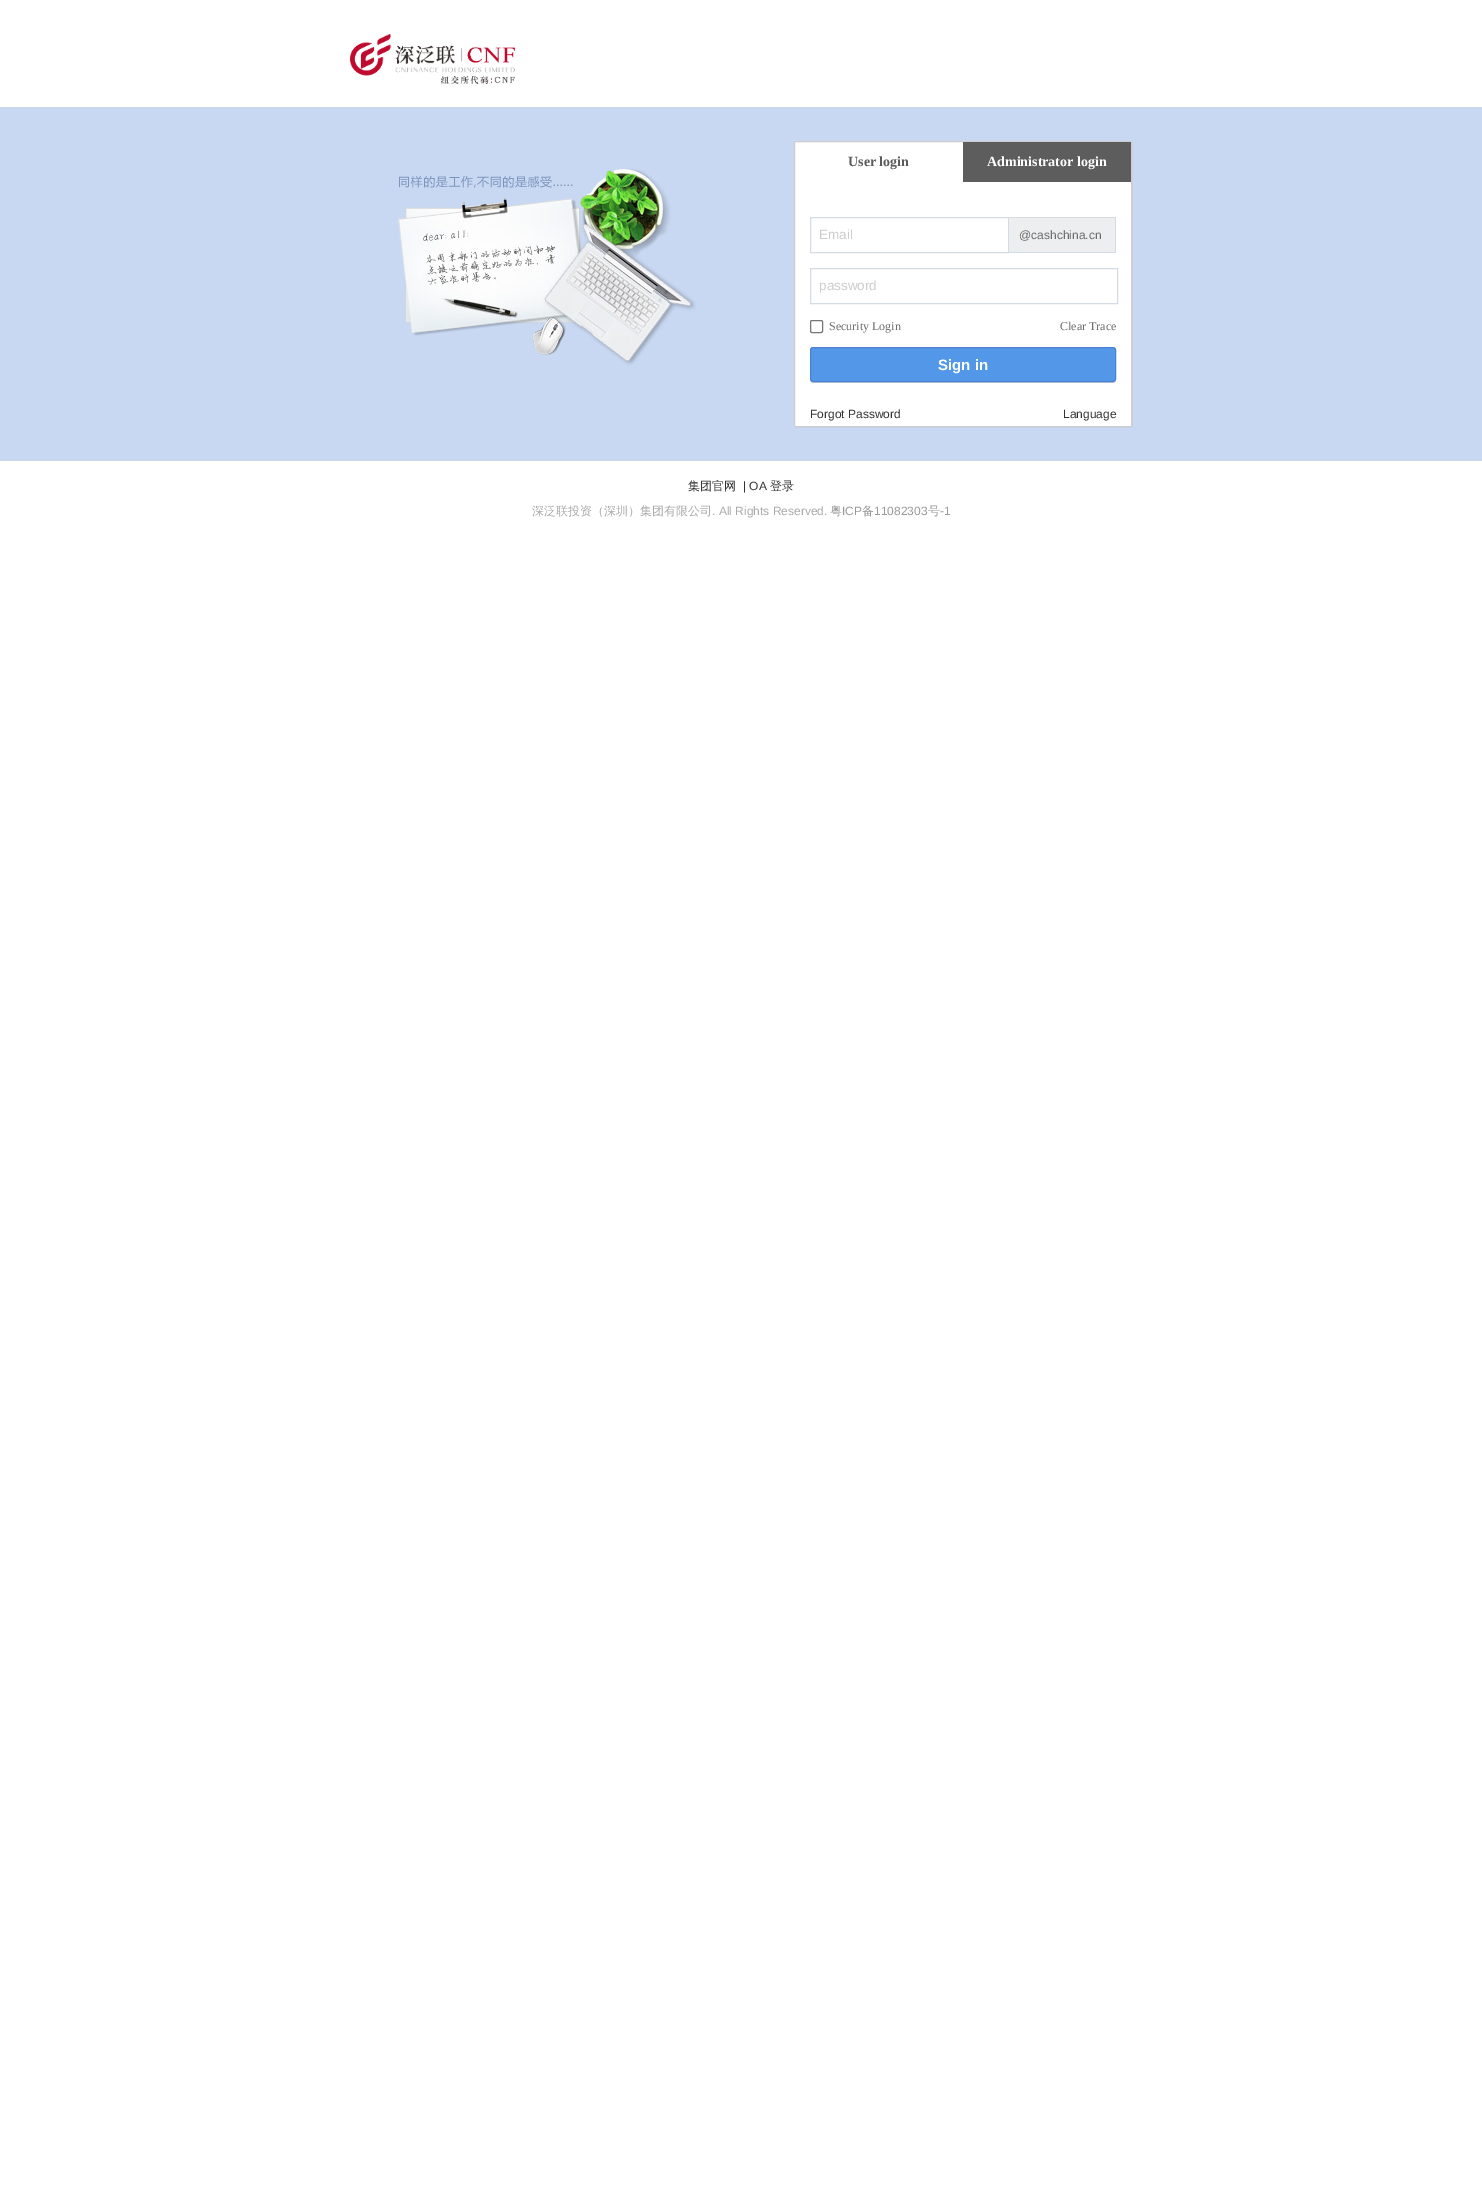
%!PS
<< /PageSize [1482 2199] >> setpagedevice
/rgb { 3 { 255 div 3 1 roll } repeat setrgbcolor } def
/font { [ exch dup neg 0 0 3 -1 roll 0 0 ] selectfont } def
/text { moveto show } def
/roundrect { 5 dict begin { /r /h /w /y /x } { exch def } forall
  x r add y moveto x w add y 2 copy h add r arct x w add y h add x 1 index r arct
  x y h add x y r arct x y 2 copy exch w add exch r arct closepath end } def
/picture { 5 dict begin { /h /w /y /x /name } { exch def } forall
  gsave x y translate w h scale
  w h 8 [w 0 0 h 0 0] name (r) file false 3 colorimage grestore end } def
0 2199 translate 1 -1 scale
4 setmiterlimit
255 255 255 rgb
0 0 1482 2199 rectfill
(img_01.rgb) 350 34 165 50 picture
201 216 242 rgb
0 107 1482 354 rectfill
(img_02.rgb) 398 165 298 200 picture
197 211 237 rgb
795 427 moveto 0 1 rlineto 338 0 rlineto 0 -286 rlineto -1 0 rlineto 0 285 rlineto closepath fill
255 255 255 rgb
794.5 141.5 moveto 337 0 rlineto 0 285 rlineto -337 0 rlineto closepath gsave fill grestore
205 205 205 rgb
stroke
93 93 93 rgb
963 142 168 40 rectfill
213 219 228 rgb
810.5 217.5 198 35 rectstroke
236 238 239 rgb
1009 218 106 34 rectfill
213 219 228 rgb
1009 217 107 1 rectfill
1115 217 1 36 rectfill
1009 252 107 1 rectfill
810.5 268.5 307 35 rectstroke
118 118 118 rgb
810.5 320.5 12 12 1.5 roundrect stroke
208 208 208 rgb
810 379 moveto 1 3 rlineto 1 1 rlineto 301 0 rlineto 2 0 3 -2 3 -4 rcurveto 0 2 -1 3 -3 3 rcurveto -300 0 rlineto -2 0 -3 -1 -3 -3 rcurveto closepath fill
83 152 232 rgb
810.5 347.5 305 34 2.5 roundrect gsave fill grestore
76 127 212 rgb
stroke
/LiberationSerif-Bold 14 font
91 91 91 rgb
(User login) 848 166 text
255 255 255 rgb
(Administrator login) 987 166 text
/LiberationSans-Regular 13.5 font
204 204 204 rgb
(Email) 819 239 text
/LiberationSans-Regular 12 font
108 108 108 rgb
(@cashchina.cn) 1019 239 text
/LiberationSans-Regular 13.5 font
204 204 204 rgb
(password) 819 290 text
/LiberationSerif-Regular 12 font
108 108 108 rgb
(Security Login) 829 330 text
(Clear Trace) 1060 330 text
/LiberationSans-Bold 15 font
255 255 255 rgb
(Sign in) 938 370 text
/LiberationSans-Regular 12 font
51 51 51 rgb
(Forgot Password) 810 418 text
(Language) 1063 418 text
/WenQuanYiZenHei-Medium 12 font
(集团官网) 688 490 text
/LiberationSans-Regular 12 font
(| OA) 743 490 text
/WenQuanYiZenHei-Medium 12 font
(登录) 770 490 text
170 170 170 rgb
(深泛联投资（深圳）集团有限公司) 532 515 text
/LiberationSans-Regular 12 font
(. All Rights Reserved.) 712 515 text
/WenQuanYiZenHei-Medium 12 font
153 153 153 rgb
(粤) 830 515 text
/LiberationSans-Regular 12 font
(ICP) 842 515 text
/WenQuanYiZenHei-Medium 12 font
(备) 862 515 text
/LiberationSans-Regular 12 font
(11082303) 874 515 text
/WenQuanYiZenHei-Medium 12 font
(号) 928 515 text
/LiberationSans-Regular 12 font
(-1) 940 515 text
showpage
